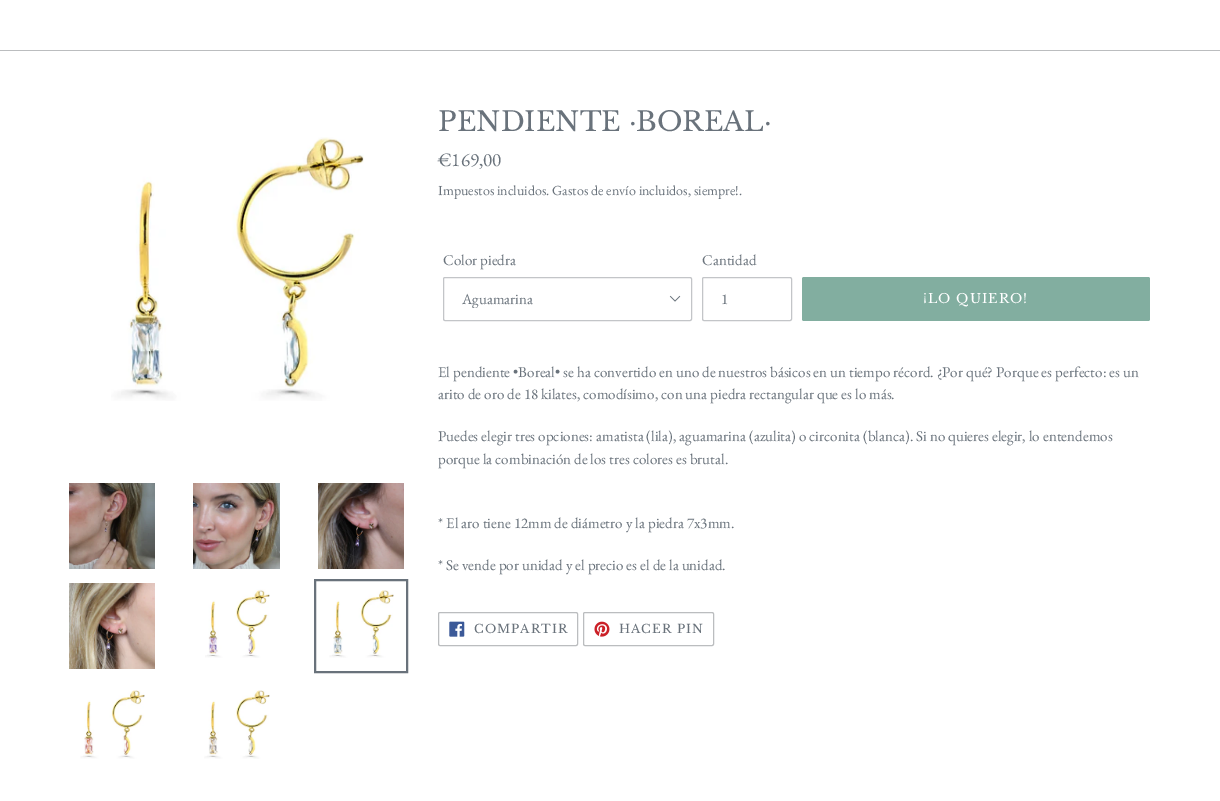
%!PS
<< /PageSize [1220 801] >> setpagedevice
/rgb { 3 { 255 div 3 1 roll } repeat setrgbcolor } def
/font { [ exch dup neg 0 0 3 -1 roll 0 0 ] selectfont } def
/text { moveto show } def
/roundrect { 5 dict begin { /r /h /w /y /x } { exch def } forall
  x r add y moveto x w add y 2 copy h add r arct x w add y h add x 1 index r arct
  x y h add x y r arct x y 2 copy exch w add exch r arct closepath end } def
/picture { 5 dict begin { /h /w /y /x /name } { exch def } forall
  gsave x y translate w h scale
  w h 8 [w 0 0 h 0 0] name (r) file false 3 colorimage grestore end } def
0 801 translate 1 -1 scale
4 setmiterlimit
255 255 255 rgb
0 0 1220 801 rectfill
187 189 191 rgb
0 50 1220 1 rectfill
(img_01.rgb) 111 137 253 264 picture
(img_02.rgb) 69 483 86 86 picture
(img_03.rgb) 193 483 87 86 picture
(img_04.rgb) 318 483 86 86 picture
(img_05.rgb) 69 583 86 86 picture
(img_06.rgb) 205 589 65 69 picture
105 114 123 rgb
2 setlinewidth
315 580 92 92 rectstroke
(img_07.rgb) 329 590 65 68 picture
(img_08.rgb) 80 690 65 69 picture
(img_09.rgb) 204 690 66 69 picture
(img_10.rgb) 669 295 12 7 picture
195 197 200 rgb
1 setlinewidth
443.5 277.5 248 43 1.5 roundrect stroke
702.5 277.5 89 43 1.5 roundrect stroke
130 174 160 rgb
802 277 348 44 2 roundrect fill
187 189 191 rgb
438.5 612.5 139 33 1.5 roundrect stroke
(img_11.rgb) 449 621 16 16 picture
583.5 612.5 130 33 1.5 roundrect stroke
(img_12.rgb) 594 621 16 16 picture
/LibreBaskerville-Regular 27 font
105 114 123 rgb
(PENDIENTE ·BOREAL·) 438 131 text
/EBGaramond-Regular 19 font
(€169,00) 438 166 text
/EBGaramond-Regular 14 font
(Impuestos incluidos. Gastos de envío incluidos, siempre!.) 438 195 text
/EBGaramond-Regular 15 font
(Color piedra) 443 265 text
gsave
462 290 201 18 rectclip
(Aguamarina) 462 304 text
grestore
(Cantidad) 702 265 text
(1) 721 304 text
/LibreBaskerville-Regular 13 font
255 255 255 rgb
923 303 moveto 1 0 (¡LO QUIERO!) ashow
/EBGaramond-Regular 15 font
105 114 123 rgb
(El pendiente •Boreal• se ha convertido en uno de nuestros básicos en un tiempo récord. ¿Por qué? Porque es perfecto: es un) 438 377 text
(arito de oro de 18 kilates, comodísimo, con una piedra rectangular que es lo más.) 438 399 text
(Puedes elegir tres opciones: amatista \(lila\), aguamarina \(azulita\) o circonita \(blanca\). Si no quieres elegir, lo entendemos) 438 441 text
(porque la combinación de los tres colores es brutal.) 438 464 text
(* El aro tiene 12mm de diámetro y la piedra 7x3mm.) 438 528 text
(* Se vende por unidad y el precio es el de la unidad.) 438 570 text
/LibreBaskerville-Regular 12 font
474 633 moveto 1 0 (COMPARTIR) ashow
619 633 moveto 1 0 (HACER PIN) ashow
showpage
